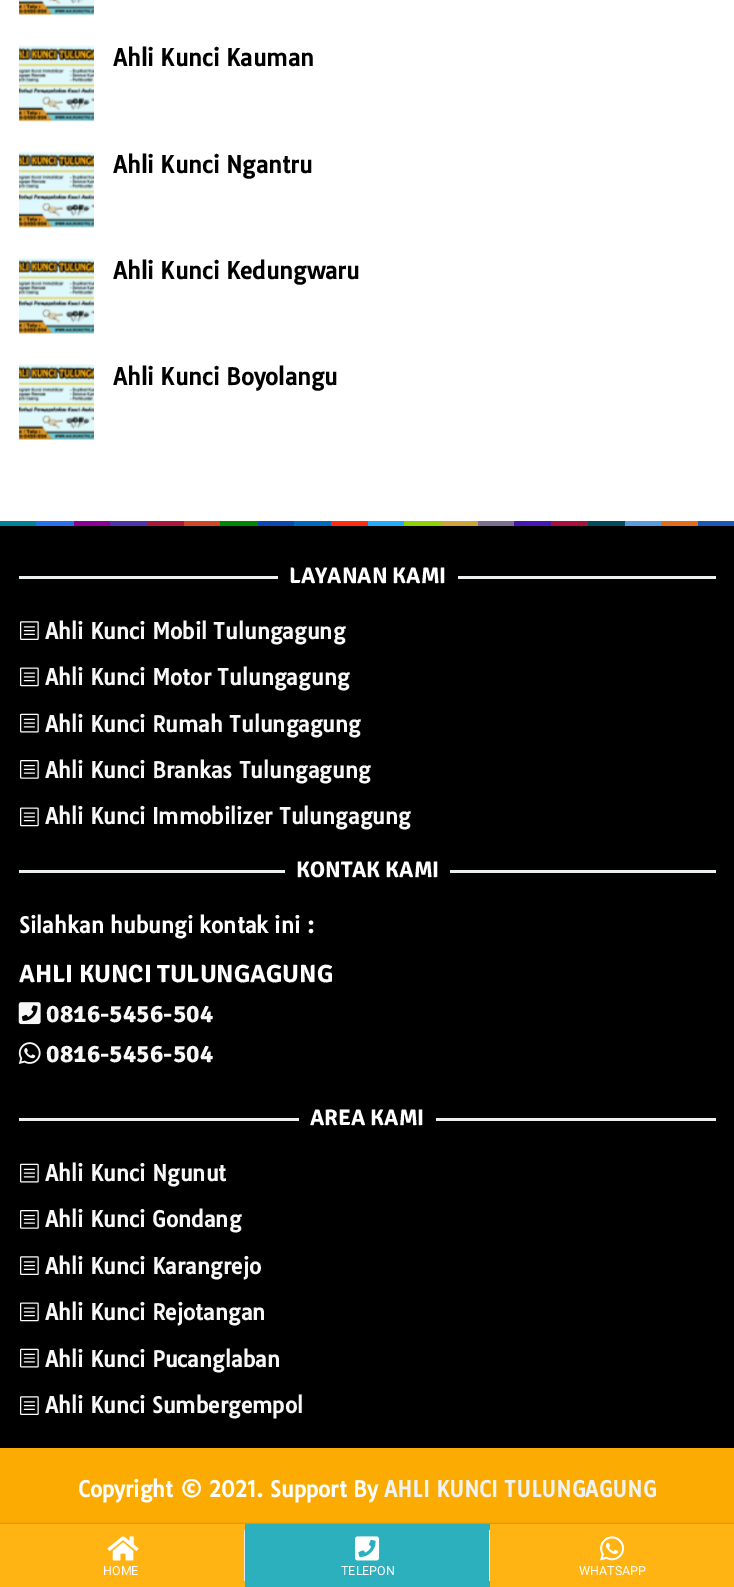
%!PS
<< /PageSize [734 1587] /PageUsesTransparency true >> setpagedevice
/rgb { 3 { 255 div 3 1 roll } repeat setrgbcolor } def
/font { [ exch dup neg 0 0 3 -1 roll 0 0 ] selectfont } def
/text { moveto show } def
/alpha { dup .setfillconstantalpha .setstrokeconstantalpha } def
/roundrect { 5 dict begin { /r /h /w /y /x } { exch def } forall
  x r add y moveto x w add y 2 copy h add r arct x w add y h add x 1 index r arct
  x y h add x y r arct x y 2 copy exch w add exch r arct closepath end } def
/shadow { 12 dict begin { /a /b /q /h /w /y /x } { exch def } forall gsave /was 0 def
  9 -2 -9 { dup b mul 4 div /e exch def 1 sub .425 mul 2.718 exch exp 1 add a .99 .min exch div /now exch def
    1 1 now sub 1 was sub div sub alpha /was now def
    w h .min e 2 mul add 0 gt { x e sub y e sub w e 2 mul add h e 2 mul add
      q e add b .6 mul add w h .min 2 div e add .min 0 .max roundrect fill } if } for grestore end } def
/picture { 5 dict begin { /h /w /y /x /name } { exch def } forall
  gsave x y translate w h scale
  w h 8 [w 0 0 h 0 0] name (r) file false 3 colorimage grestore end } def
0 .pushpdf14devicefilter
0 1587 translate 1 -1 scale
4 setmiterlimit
255 255 255 rgb
0 0 734 1587 rectfill
(img_01.rgb) 19 0 75 15 picture
(img_02.rgb) 19 45 75 77 picture
(img_03.rgb) 19 151 75 77 picture
(img_04.rgb) 19 258 75 76 picture
(img_05.rgb) 19 364 75 76 picture
0 130 153 rgb
0 521 36 5 rectfill
38 114 236 rgb
36 521 38 5 rectfill
140 0 149 rgb
74 521 36 5 rectfill
81 51 171 rgb
110 521 38 5 rectfill
172 25 61 rgb
148 521 36 5 rectfill
210 71 38 rgb
184 521 36 5 rectfill
0 138 0 rgb
220 521 38 5 rectfill
9 74 178 rgb
258 521 36 5 rectfill
0 106 193 rgb
294 521 37 5 rectfill
255 46 18 rgb
331 521 37 5 rectfill
31 174 255 rgb
368 521 36 5 rectfill
145 209 0 rgb
404 521 37 5 rectfill
206 165 57 rgb
441 521 37 5 rectfill
127 110 148 rgb
478 521 36 5 rectfill
70 23 180 rgb
514 521 37 5 rectfill
173 16 60 rgb
551 521 37 5 rectfill
0 77 96 rgb
588 521 37 5 rectfill
86 156 227 rgb
625 521 36 5 rectfill
229 108 25 rgb
661 521 37 5 rectfill
27 88 184 rgb
698 521 36 5 rectfill
0 0 0 rgb
0 526 734 922 rectfill
236 240 241 rgb
19 576 259 3 rectfill
458 576 258 3 rectfill
(img_06.rgb) 20 621 19 19 picture
(img_07.rgb) 20 667 19 20 picture
(img_08.rgb) 20 713 19 20 picture
(img_09.rgb) 20 760 19 19 picture
(img_07.rgb) 20 807 19 20 picture
19 870 266 3 rectfill
450 870 266 3 rectfill
(img_10.rgb) 18 1002 23 23 picture
(img_11.rgb) 18 1042 23 22 picture
19 1118 280 3 rectfill
436 1118 280 3 rectfill
(img_08.rgb) 20 1163 19 20 picture
(img_09.rgb) 20 1210 19 19 picture
(img_06.rgb) 20 1256 19 19 picture
(img_07.rgb) 20 1302 19 20 picture
(img_08.rgb) 20 1348 19 20 picture
(img_06.rgb) 20 1396 19 19 picture
251 171 1 rgb
0 1448 734 76 rectfill
0 0 0 rgb
-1 1523 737 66 0 0.5 0.12 shadow
255 180 20 rgb
0 1524 245 63 rectfill
(img_12.rgb) 107 1536 32 25 picture
235 235 235 rgb
244 1530 1 51 rectfill
44 176 189 rgb
245 1524 245 63 rectfill
(img_13.rgb) 355 1536 25 25 picture
235 235 235 rgb
489 1530 1 51 rectfill
255 180 20 rgb
490 1524 244 63 rectfill
(img_14.rgb) 600 1536 25 25 picture
/Tauri-Bold 22.5 font
0 0 0 rgb
(Ahli Kunci Kauman) 113 66 text
(Ahli Kunci Ngantru) 113 173 text
(Ahli Kunci Kedungwaru) 113 279 text
(Ahli Kunci Boyolangu) 113 385 text
/Signika-Bold 22.5 font
255 255 255 rgb
(LAYANAN KAMI) 289 583 text
/Tauri-Bold 21.25 font
247 247 247 rgb
(Ahli Kunci Mobil Tulungagung) 45 639 text
(Ahli Kunci Motor Tulungagung) 45 685 text
(Ahli Kunci Rumah Tulungagung) 45 732 text
(Ahli Kunci Brankas Tulungagung) 45 778 text
(Ahli Kunci Immobilizer Tulungagung) 45 824 text
/Signika-Bold 22.5 font
255 255 255 rgb
(KONTAK KAMI) 296 877 text
/Tauri-Bold 21.25 font
(Silahkan hubungi kontak ini :) 19 933 text
/Signika-Bold 25 font
(AHLI KUNCI TULUNGAGUNG) 19 982 text
247 247 247 rgb
(0816-5456-504) 46 1022 text
(0816-5456-504) 46 1062 text
/Signika-Bold 22.5 font
255 255 255 rgb
(AREA KAMI) 310 1125 text
/Tauri-Bold 21.25 font
247 247 247 rgb
(Ahli Kunci Ngunut) 45 1181 text
(Ahli Kunci Gondang) 45 1227 text
(Ahli Kunci Karangrejo) 45 1274 text
(Ahli Kunci Rejotangan) 45 1320 text
(Ahli Kunci Pucanglaban) 45 1367 text
(Ahli Kunci Sumbergempol) 45 1413 text
255 255 255 rgb
(Copyright © 2021. Support By) 78 1497 text
239 243 244 rgb
(AHLI KUNCI TULUNGAGUNG) 384 1497 text
/Roboto-Regular 12.5 font
255 255 255 rgb
(HOME) 103 1575 text
(TELEPON) 341 1575 text
(WHATSAPP) 579 1575 text
.poppdf14devicefilter showpage
